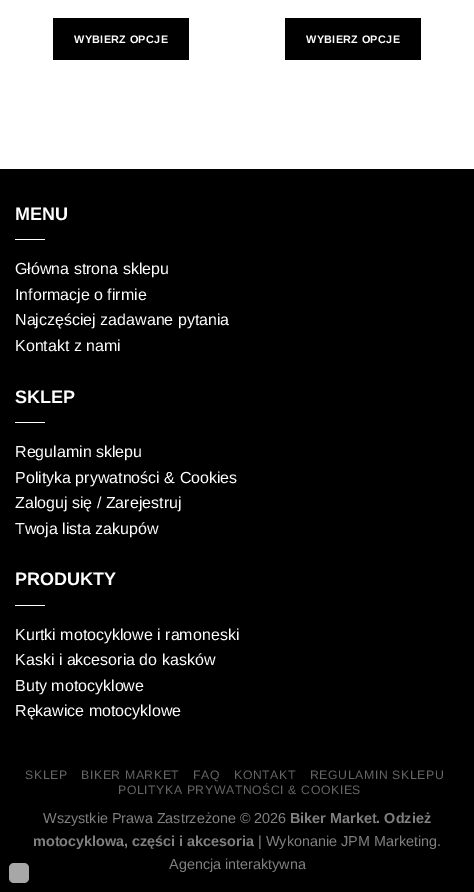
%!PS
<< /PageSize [474 892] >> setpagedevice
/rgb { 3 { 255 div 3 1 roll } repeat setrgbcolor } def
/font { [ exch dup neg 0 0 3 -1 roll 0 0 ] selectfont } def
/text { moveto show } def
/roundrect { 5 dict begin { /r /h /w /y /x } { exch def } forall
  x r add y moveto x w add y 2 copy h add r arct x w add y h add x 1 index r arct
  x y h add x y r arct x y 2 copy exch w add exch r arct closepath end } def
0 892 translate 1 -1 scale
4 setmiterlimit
255 255 255 rgb
0 0 474 892 rectfill
0 0 0 rgb
53 18 136 42 rectfill
285 18 136 42 rectfill
0 169 474 723 rectfill
255 255 255 rgb
15 239 30 1 rectfill
15 422 30 1 rectfill
15 605 30 1 rectfill
167 167 167 rgb
9 863 20 20 5 roundrect fill
/LiberationSans-Bold 10.9 font
255 255 255 rgb
74 43 moveto 0.3 0 (WYBIERZ OPCJE) ashow
306 43 moveto 0.3 0 (WYBIERZ OPCJE) ashow
/LiberationSans-Bold 18 font
(MENU) 15 220 text
/LiberationSans-Regular 16 font
(Główna strona sklepu) 15 274 text
(Informacje o firmie) 15 300 text
(Najczęściej zadawane pytania) 15 325 text
(Kontakt z nami) 15 351 text
/LiberationSans-Bold 18 font
(SKLEP) 15 403 text
/LiberationSans-Regular 16 font
(Regulamin sklepu) 15 457 text
(Polityka prywatności & Cookies) 15 483 text
(Zaloguj się / Zarejestruj) 15 508 text
(Twoja lista zakupów) 15 534 text
/LiberationSans-Bold 18 font
(PRODUKTY) 15 585 text
/LiberationSans-Regular 16 font
(Kurtki motocyklowe i ramoneski) 15 640 text
(Kaski i akcesoria do kasków) 15 665 text
(Buty motocyklowe) 15 691 text
(Rękawice motocyklowe) 15 716 text
/LiberationSans-Regular 12.25 font
102 102 102 rgb
25 779 moveto 0.6 0 (SKLEP) ashow
81 779 moveto 0.6 0 (BIKER MARKET) ashow
193 779 moveto 0.6 0 (FAQ) ashow
234 779 moveto 0.6 0 (KONTAKT) ashow
310 779 moveto 0.6 0 (REGULAMIN SKLEPU) ashow
118 794 moveto 0.6 0 (POLITYKA PRYWATNOŚCI & COOKIES) ashow
/LiberationSans-Regular 14.4 font
128 128 128 rgb
(Wszystkie Prawa Zastrzeżone © 2026) 43 823 text
/LiberationSans-Bold 14.4 font
(Biker Market. Odzież) 290 823 text
(motocyklowa, części i akcesoria) 33 846 text
/LiberationSans-Regular 14.4 font
(| Wykonanie JPM Marketing.) 258 846 text
(Agencja interaktywna) 169 869 text
showpage
